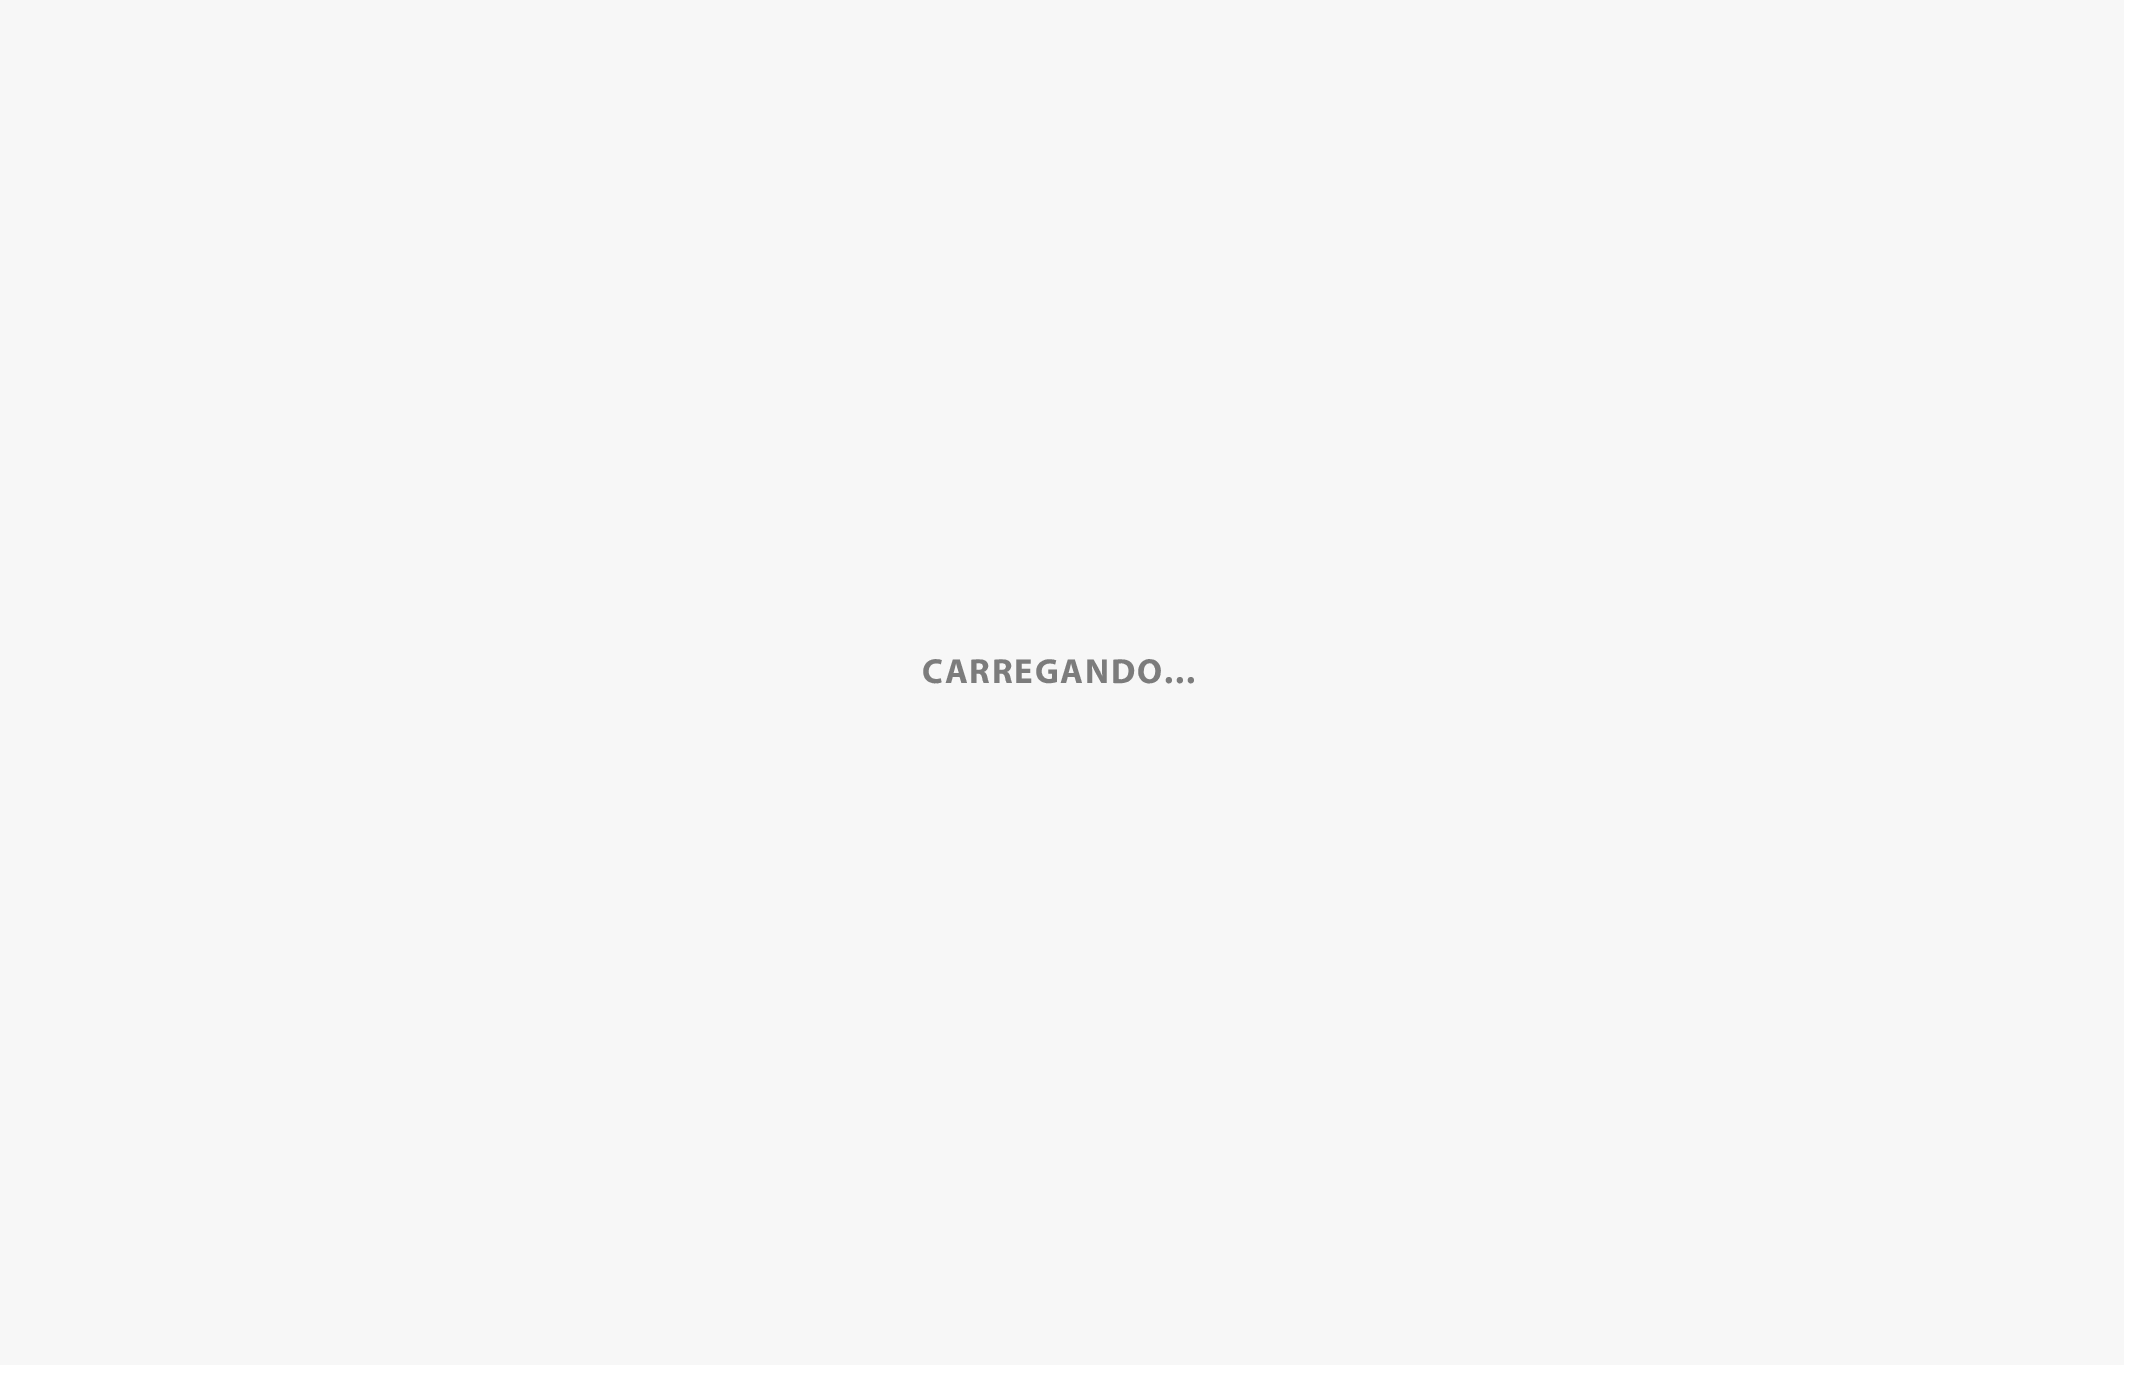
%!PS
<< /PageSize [2129 1390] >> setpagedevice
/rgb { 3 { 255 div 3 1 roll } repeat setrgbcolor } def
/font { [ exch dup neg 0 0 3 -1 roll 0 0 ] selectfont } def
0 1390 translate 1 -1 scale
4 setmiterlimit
255 255 255 rgb
0 0 2129 1390 rectfill
247 247 247 rgb
0 0 2124 1365 rectfill
/Myriad-Bold 35 font
124 124 124 rgb
922 683 moveto 1.75 0 (CARREGANDO...) ashow
showpage
